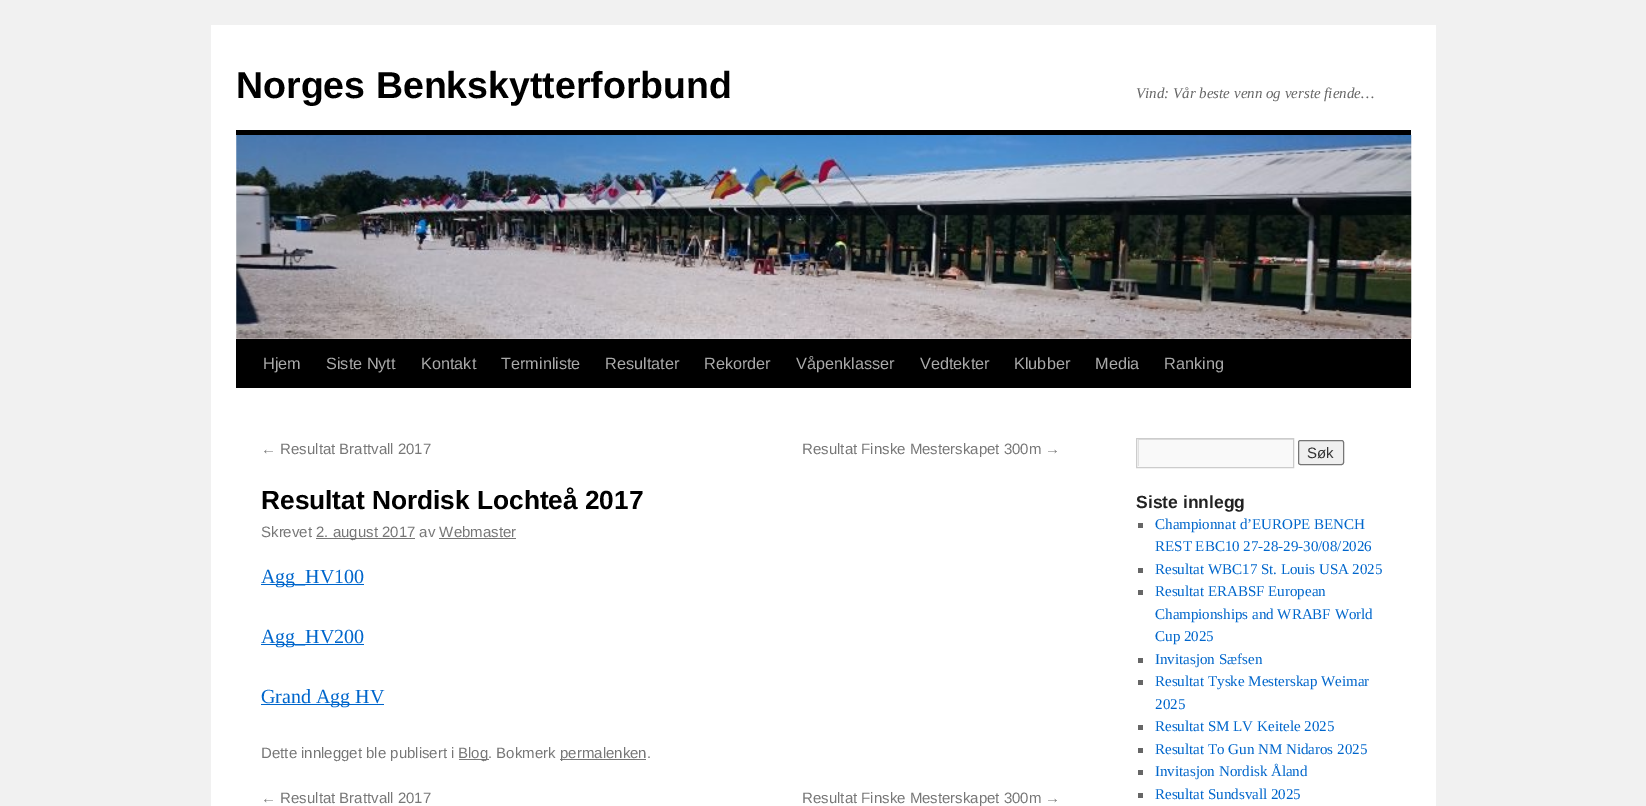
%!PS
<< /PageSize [1646 806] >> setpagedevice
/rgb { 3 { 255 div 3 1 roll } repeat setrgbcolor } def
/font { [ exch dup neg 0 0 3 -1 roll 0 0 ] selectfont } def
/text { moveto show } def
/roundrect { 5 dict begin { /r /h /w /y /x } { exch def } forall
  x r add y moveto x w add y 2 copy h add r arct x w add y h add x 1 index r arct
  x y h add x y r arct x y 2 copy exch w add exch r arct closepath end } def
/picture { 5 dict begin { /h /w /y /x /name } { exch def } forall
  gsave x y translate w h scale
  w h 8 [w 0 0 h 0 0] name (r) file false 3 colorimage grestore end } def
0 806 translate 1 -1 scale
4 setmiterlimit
241 241 241 rgb
0 0 1646 806 rectfill
255 255 255 rgb
211 25 1225 781 rectfill
0 0 0 rgb
236 130 1175 5 rectfill
236 339 1175 49 rectfill
(img_01.rgb) 236 135 1176 204 picture
119 119 119 rgb
316 538 99 1 rectfill
439 538 77 1 rectfill
0 102 204 rgb
261 584 103 1 rectfill
261 644 103 1 rectfill
261 704 123 1 rectfill
119 119 119 rgb
459 759 30 1 rectfill
560 759 86 1 rectfill
249 249 249 rgb
1137 439 156 28 rectfill
gsave
1138 439 155 27 rectclip
224 224 224 rgb
1014 315 moveto 402 0 rlineto 0 275 rlineto -402 0 rlineto closepath 1139 440 moveto 155 0 rlineto 0 28 rlineto -155 0 rlineto closepath eofill
grestore
204 204 204 rgb
1136.5 438.5 157 29 rectstroke
239 239 239 rgb
1298.5 440.5 45 24 2 roundrect gsave fill grestore
118 118 118 rgb
stroke
102 102 102 rgb
1138 523 5 5 rectfill
1138 568 5 5 rectfill
1138 590 5 5 rectfill
1138 658 5 5 rectfill
1138 680 5 5 rectfill
1138 725 5 5 rectfill
1138 748 5 5 rectfill
1138 770 5 5 rectfill
1138 793 5 5 rectfill
/LiberationSans-Bold 37.5 font
0 0 0 rgb
(Norges Benkskytterforbund) 236 98 text
/LiberationSerif-Italic 15 font
102 102 102 rgb
(Vind: Vår beste venn og verste fiende…) 1136 98 text
/LiberationSans-Regular 16.25 font
170 170 170 rgb
(Hjem) 263 369 text
(Siste Nytt) 326 369 text
(Kontakt) 421 369 text
(Terminliste) 501 369 text
(Resultater) 605 369 text
(Rekorder) 704 369 text
(Våpenklasser) 796 369 text
(Vedtekter) 920 369 text
(Klubber) 1014 369 text
(Media) 1095 369 text
(Ranking) 1164 369 text
/LiberationSans-Regular 15 font
119 119 119 rgb
(← Resultat Brattvall 2017) 261 454 text
(Resultat Finske Mesterskapet 300m →) 802 454 text
/LiberationSans-Bold 26.25 font
0 0 0 rgb
(Resultat Nordisk Lochteå 2017) 261 509 text
/LiberationSans-Regular 15 font
119 119 119 rgb
(Skrevet) 261 537 text
(2. august 2017 av Webmaster) 316 537 text
/LiberationSerif-Regular 20 font
0 102 204 rgb
(Agg_HV100) 261 583 text
(Agg_HV200) 261 643 text
(Grand Agg HV) 261 703 text
/LiberationSans-Regular 15 font
119 119 119 rgb
(Dette innlegget ble publisert i) 261 758 text
(Blog. Bokmerk) 458 758 text
(permalenken.) 560 758 text
(← Resultat Brattvall 2017) 261 803 text
(Resultat Finske Mesterskapet 300m →) 802 803 text
51 51 51 rgb
(Søk) 1307 458 text
/LiberationSans-Bold 17.5 font
34 34 34 rgb
(Siste innlegg) 1136 508 text
/LiberationSerif-Regular 15 font
0 102 204 rgb
(Championnat d’EUROPE BENCH) 1155 529 text
(REST EBC10 27-28-29-30/08/2026) 1155 551 text
(Resultat WBC17 St. Louis USA 2025) 1155 574 text
(Resultat ERABSF European) 1155 596 text
(Championships and WRABF World) 1155 619 text
(Cup 2025) 1155 641 text
(Invitasjon Sæfsen) 1155 664 text
(Resultat Tyske Mesterskap Weimar) 1155 686 text
(2025) 1155 709 text
(Resultat SM LV Keitele 2025) 1155 731 text
(Resultat To Gun NM Nidaros 2025) 1155 754 text
(Invitasjon Nordisk Åland) 1155 776 text
(Resultat Sundsvall 2025) 1155 799 text
showpage
